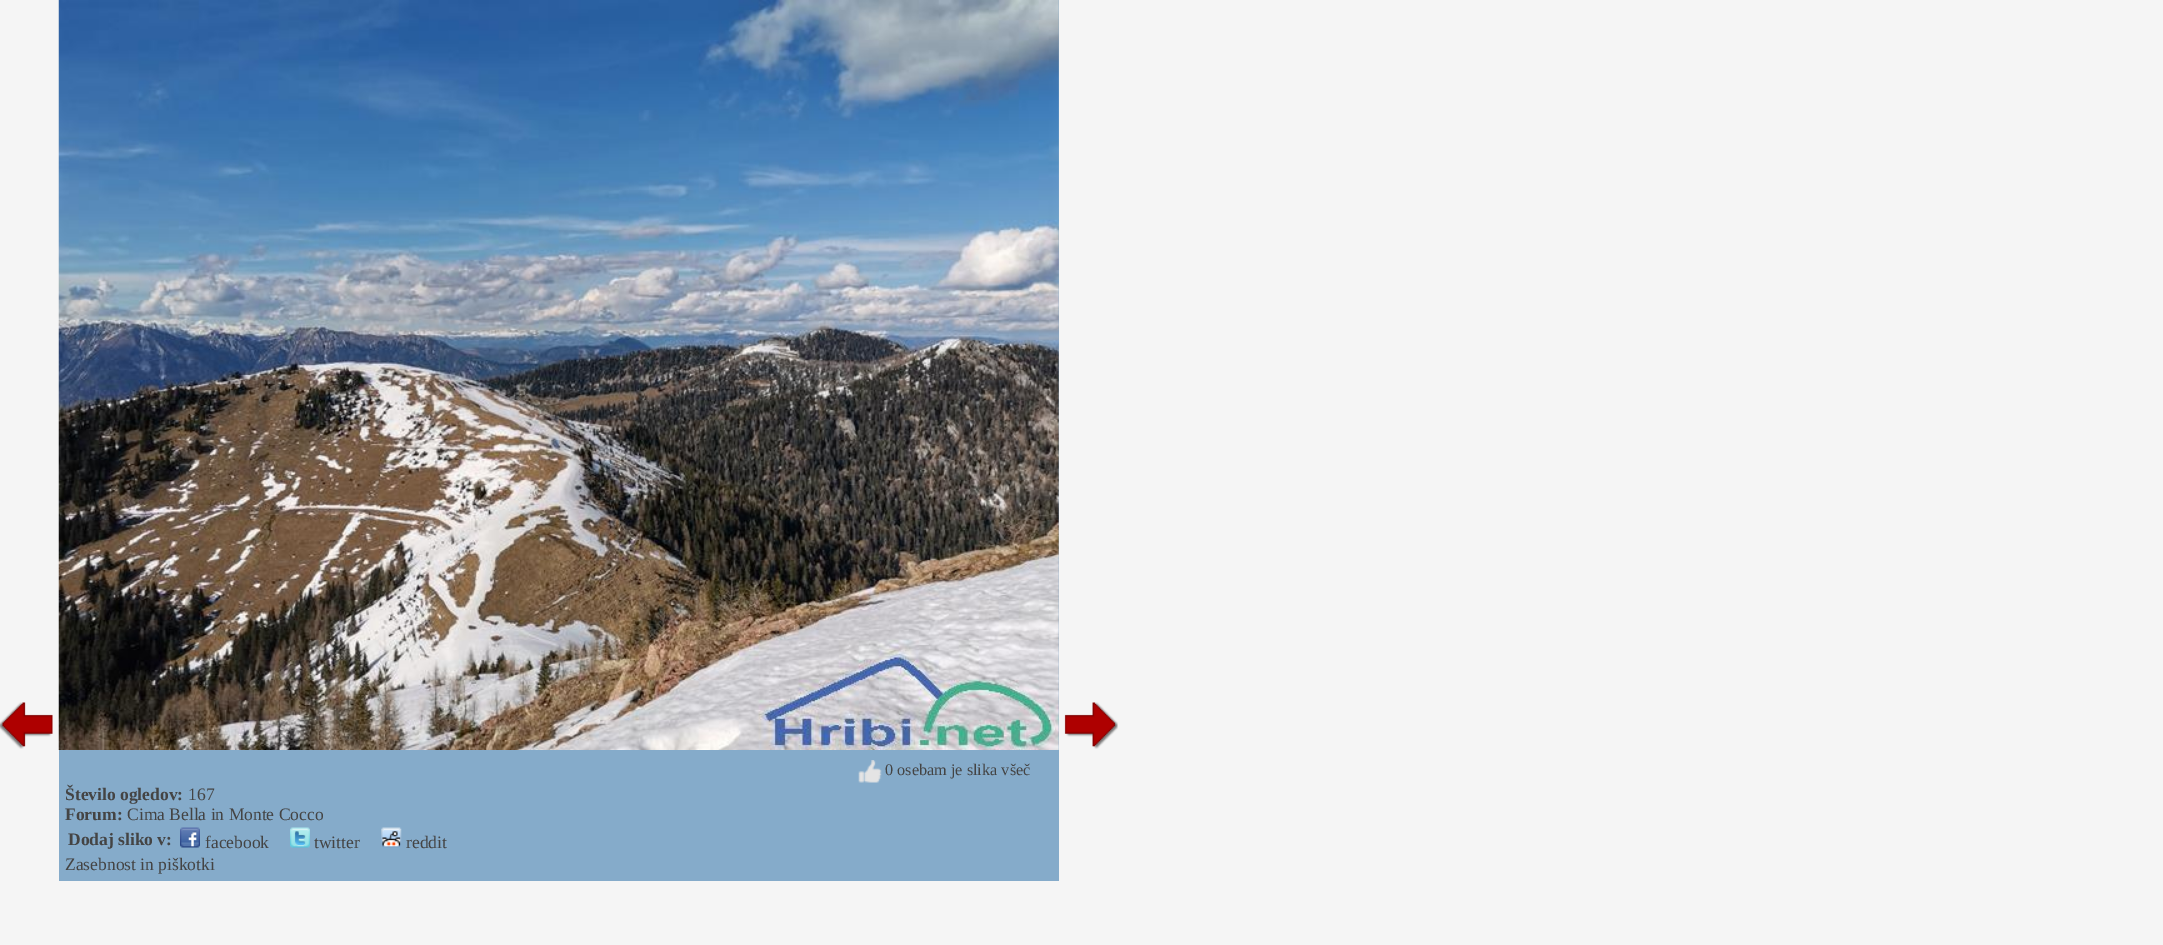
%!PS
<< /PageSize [2163 945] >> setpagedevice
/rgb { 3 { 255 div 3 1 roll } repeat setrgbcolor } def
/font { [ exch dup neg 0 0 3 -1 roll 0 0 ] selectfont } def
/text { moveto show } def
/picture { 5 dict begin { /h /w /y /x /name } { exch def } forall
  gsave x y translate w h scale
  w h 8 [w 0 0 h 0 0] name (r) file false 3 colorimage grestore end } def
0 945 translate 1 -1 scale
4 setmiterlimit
245 245 245 rgb
0 0 2163 945 rectfill
(img_01.rgb) 0 702 53 47 picture
(img_02.rgb) 1064 702 54 47 picture
133 171 202 rgb
59 0 1000 881 rectfill
(img_03.rgb) 58 0 1001 750 picture
(img_04.rgb) 858 760 24 23 picture
(img_05.rgb) 180 827 20 21 picture
(img_06.rgb) 290 827 20 21 picture
(img_07.rgb) 381 827 21 21 picture
/LiberationSerif-Regular 16.25 font
68 68 68 rgb
(0 osebam je slika všeč) 885 775 text
/LiberationSerif-Bold 17.5 font
(Število ogledov:) 65 800 text
/LiberationSerif-Regular 17.5 font
(167) 188 800 text
/LiberationSerif-Bold 17.5 font
(Forum:) 65 820 text
/LiberationSerif-Regular 17.5 font
(Cima Bella in Monte Cocco) 127 820 text
/LiberationSerif-Bold 17.5 font
(Dodaj sliko v:) 68 845 text
/LiberationSerif-Regular 17.5 font
(facebook) 205 848 text
(twitter) 314 848 text
(reddit) 406 848 text
(Zasebnost in piškotki) 65 870 text
showpage
